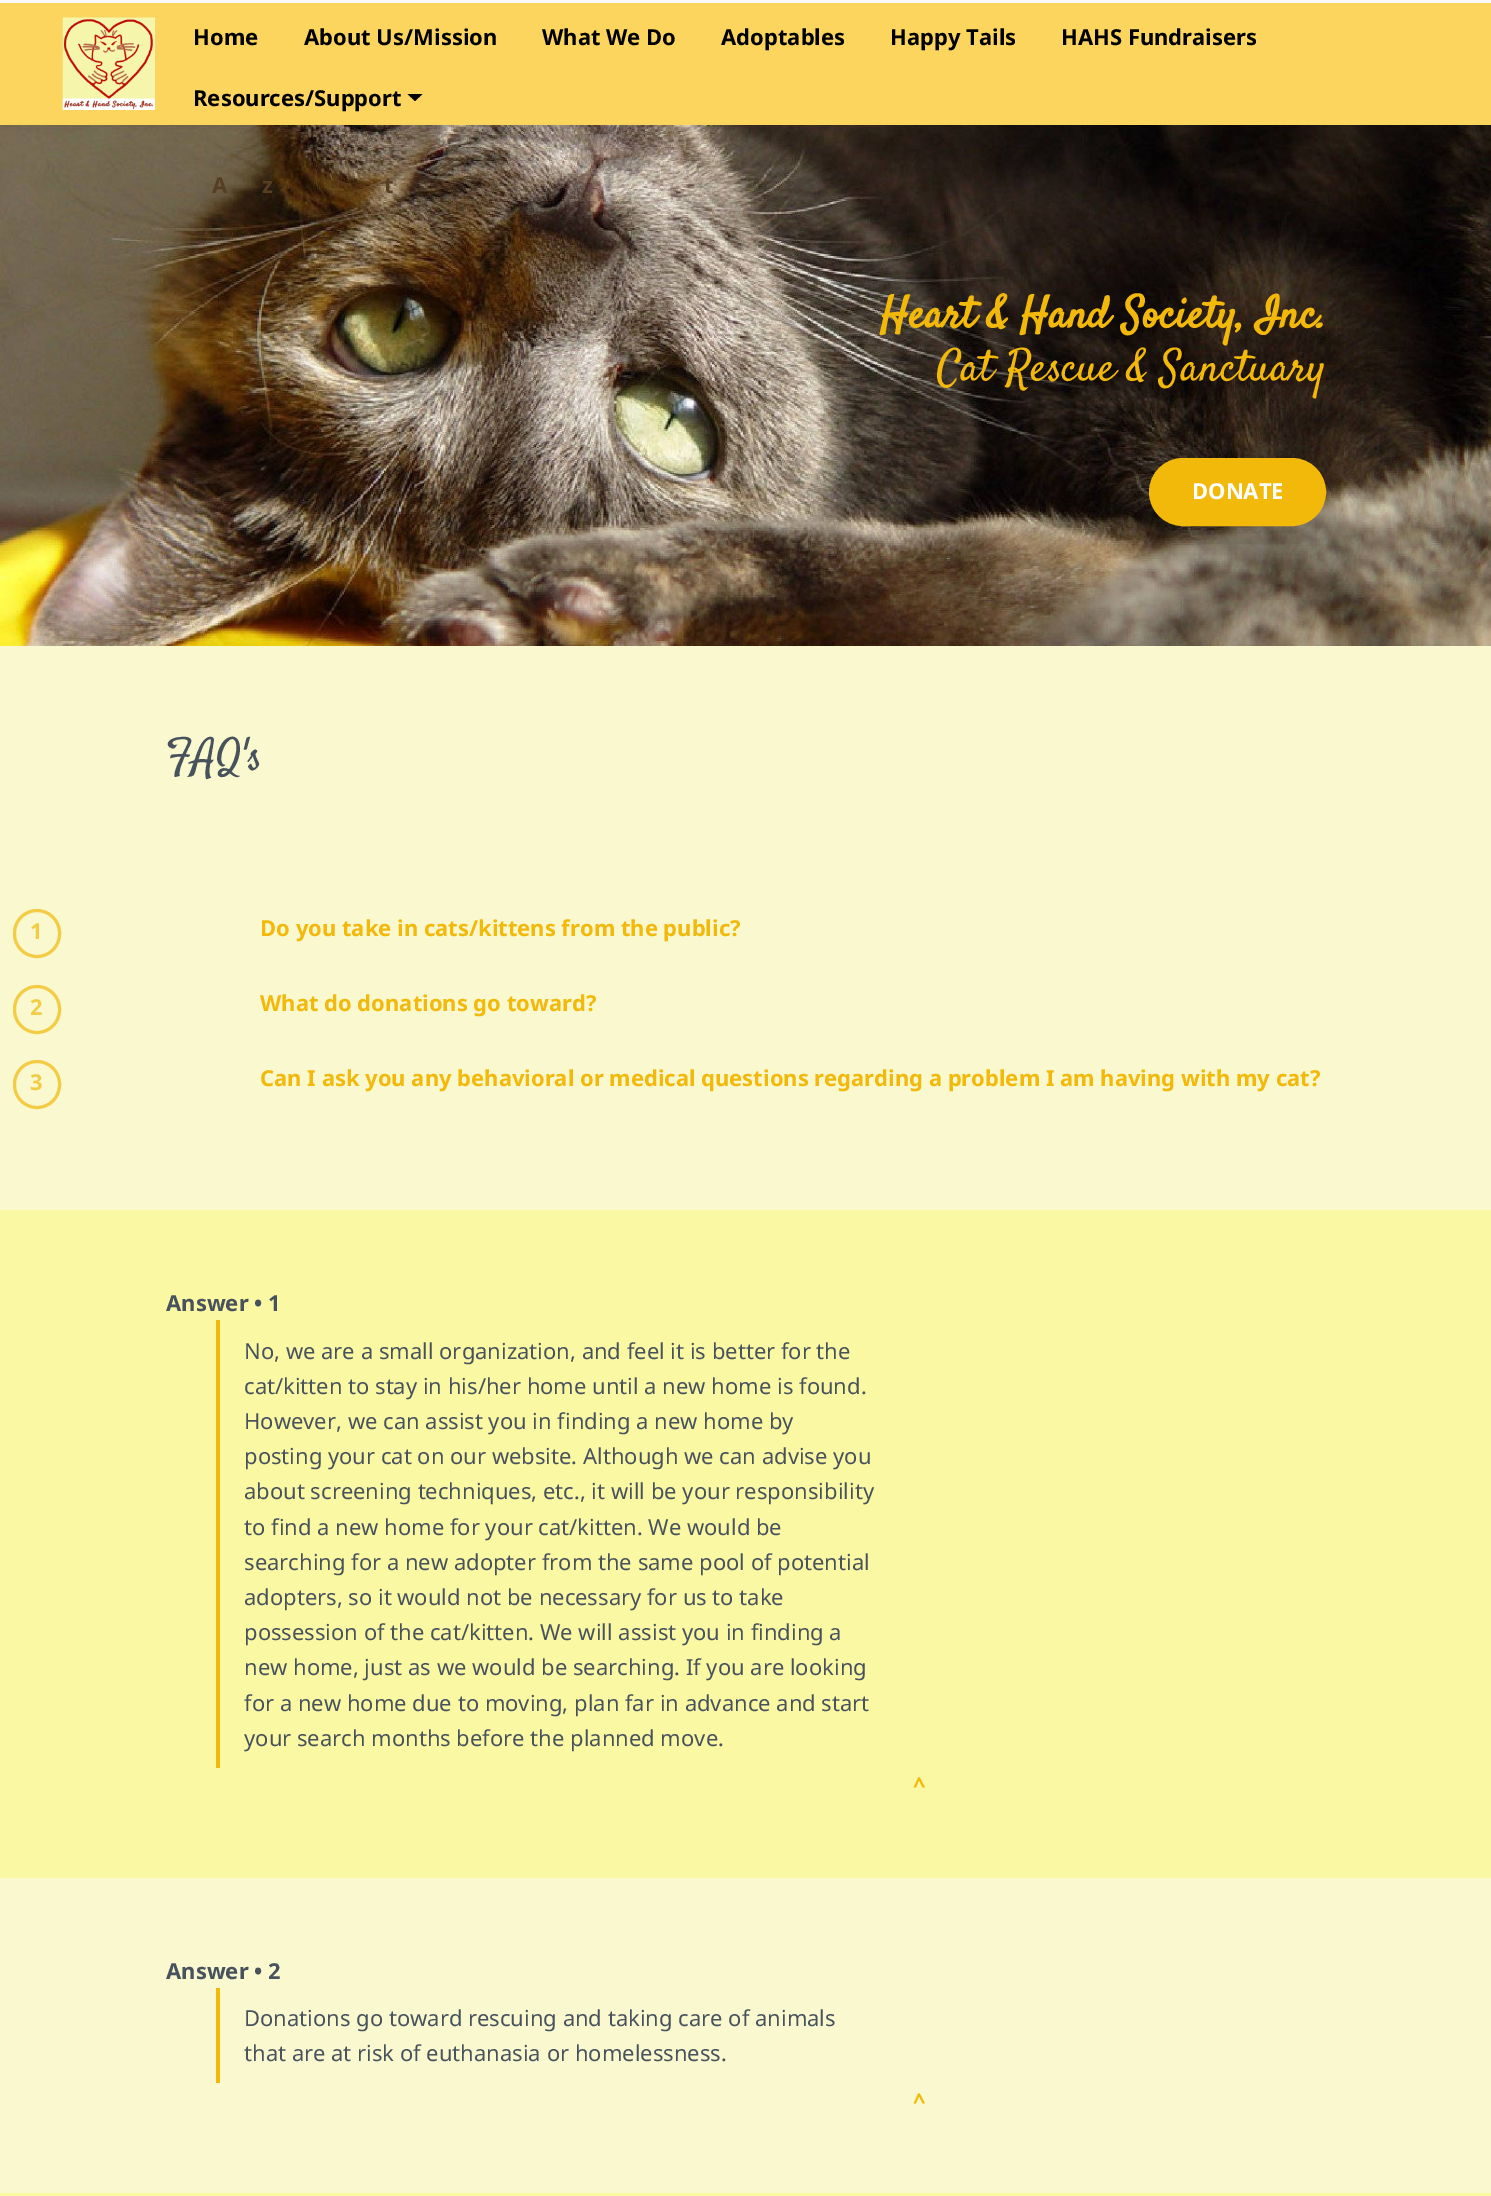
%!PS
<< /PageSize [1491 2196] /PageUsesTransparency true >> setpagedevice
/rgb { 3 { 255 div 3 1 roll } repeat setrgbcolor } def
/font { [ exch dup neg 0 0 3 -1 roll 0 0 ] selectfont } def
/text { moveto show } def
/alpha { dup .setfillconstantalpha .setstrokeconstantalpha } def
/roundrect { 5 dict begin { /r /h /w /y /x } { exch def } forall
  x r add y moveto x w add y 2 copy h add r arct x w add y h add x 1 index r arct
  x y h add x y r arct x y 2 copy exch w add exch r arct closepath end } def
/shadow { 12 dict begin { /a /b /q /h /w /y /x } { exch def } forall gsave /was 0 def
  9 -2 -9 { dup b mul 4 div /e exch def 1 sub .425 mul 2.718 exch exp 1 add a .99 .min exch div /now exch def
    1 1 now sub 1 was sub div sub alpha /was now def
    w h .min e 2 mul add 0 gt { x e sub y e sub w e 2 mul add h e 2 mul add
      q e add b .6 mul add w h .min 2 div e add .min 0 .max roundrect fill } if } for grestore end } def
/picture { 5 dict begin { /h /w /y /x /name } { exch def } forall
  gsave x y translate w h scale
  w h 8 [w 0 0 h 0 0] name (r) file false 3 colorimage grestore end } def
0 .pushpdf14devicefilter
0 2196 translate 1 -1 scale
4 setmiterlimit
255 255 255 rgb
0 0 1491 2196 rectfill
(img_02.rgb) 0 125 1491 521 picture
0 0 0 rgb
0 5 1491 123 0 6 0.07 shadow
252 213 95 rgb
0 3 1491 122 rectfill
(img_01.rgb) 62 17 93 93 picture
0 0 0 rgb
407.5 94 moveto 15 0 rlineto -7.5 7 rlineto closepath fill
1155 483 165 56 28 22 0.25 shadow
242 184 10 rgb
1150.5 459.5 174 65 32.5 roundrect gsave fill grestore
3 setlinewidth
stroke
249 248 206 rgb
0 646 1491 564 rectfill
244 203 69 rgb
14.5 910.5 45 46 22.5 roundrect stroke
14.5 986.5 45 46 22.5 roundrect stroke
14.5 1061.5 45 46 22.5 roundrect stroke
250 248 163 rgb
0 1210 1491 668 rectfill
242 184 10 rgb
216 1320 4 448 rectfill
249 248 206 rgb
0 1878 1491 315 rectfill
242 184 10 rgb
216 1988 4 95 rectfill
250 248 163 rgb
0 2193 1491 3 rectfill
/NotoSans-Bold 22 font
0 0 0 rgb
(Home) 193 45 text
(About Us/Mission) 304 45 text
(What We Do) 542 45 text
(Adoptables) 721 45 text
(Happy Tails) 890 45 text
(HAHS Fundraisers) 1061 45 text
(Resources/Support) 193 106 text
85 62 33 rgb
(A) 212 193 text
(z) 262 193 text
(t) 384 193 text
/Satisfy-Bold 44 font
242 184 10 rgb
(Heart & Hand Society, Inc.) 880 327 text
/Satisfy-Regular 44 font
(Cat Rescue & Sanctuary) 937 380 text
/NotoSans-Bold 22 font
255 255 255 rgb
(DONATE) 1192 499 text
/Satisfy-Regular 44 font
72 82 92 rgb
(FAQ's) 166 769 text
/NotoSans-Bold 22 font
244 203 69 rgb
(1) 30 939 text
242 184 10 rgb
(Do you take in cats/kittens from the public?) 260 936 text
244 203 69 rgb
(2) 30 1015 text
242 184 10 rgb
(What do donations go toward?) 260 1011 text
244 203 69 rgb
(3) 30 1090 text
242 184 10 rgb
(Can I ask you any behavioral or medical questions regarding a problem I am having with my cat?) 260 1086 text
72 82 92 rgb
(Answer • 1) 166 1311 text
/NotoSans-Regular 22 font
(No, we are a small organization, and feel it is better for the) 244 1359 text
(cat/kitten to stay in his/her home until a new home is found.) 244 1394 text
(However, we can assist you in finding a new home by) 244 1429 text
(posting your cat on our website. Although we can advise you) 244 1464 text
(about screening techniques, etc., it will be your responsibility) 244 1499 text
(to find a new home for your cat/kitten. We would be) 244 1535 text
(searching for a new adopter from the same pool of potential) 244 1570 text
(adopters, so it would not be necessary for us to take) 244 1605 text
(possession of the cat/kitten. We will assist you in finding a) 244 1640 text
(new home, just as we would be searching. If you are looking) 244 1675 text
(for a new home due to moving, plan far in advance and start) 244 1711 text
(your search months before the planned move.) 244 1746 text
/NotoSans-Bold 22 font
242 184 10 rgb
(^) 913 1793 text
72 82 92 rgb
(Answer • 2) 166 1979 text
/NotoSans-Regular 22 font
(Donations go toward rescuing and taking care of animals) 244 2026 text
(that are at risk of euthanasia or homelessness.) 244 2061 text
/NotoSans-Bold 22 font
242 184 10 rgb
(^) 913 2109 text
.poppdf14devicefilter showpage
